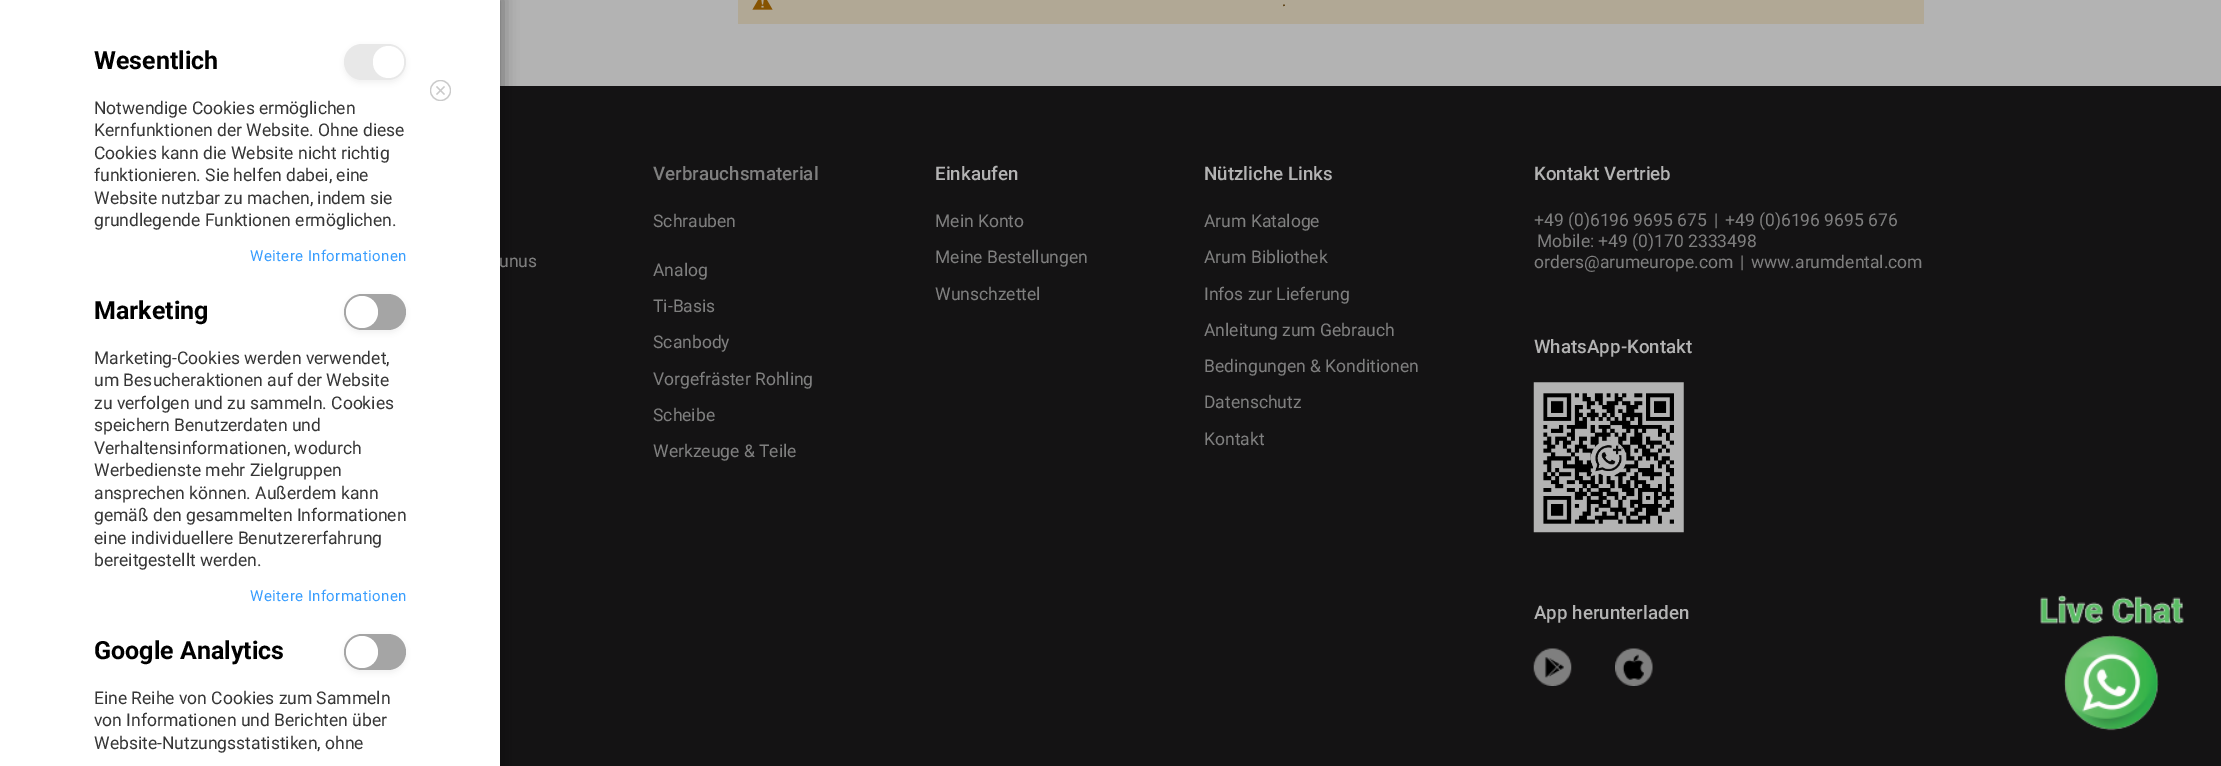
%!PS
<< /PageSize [2221 766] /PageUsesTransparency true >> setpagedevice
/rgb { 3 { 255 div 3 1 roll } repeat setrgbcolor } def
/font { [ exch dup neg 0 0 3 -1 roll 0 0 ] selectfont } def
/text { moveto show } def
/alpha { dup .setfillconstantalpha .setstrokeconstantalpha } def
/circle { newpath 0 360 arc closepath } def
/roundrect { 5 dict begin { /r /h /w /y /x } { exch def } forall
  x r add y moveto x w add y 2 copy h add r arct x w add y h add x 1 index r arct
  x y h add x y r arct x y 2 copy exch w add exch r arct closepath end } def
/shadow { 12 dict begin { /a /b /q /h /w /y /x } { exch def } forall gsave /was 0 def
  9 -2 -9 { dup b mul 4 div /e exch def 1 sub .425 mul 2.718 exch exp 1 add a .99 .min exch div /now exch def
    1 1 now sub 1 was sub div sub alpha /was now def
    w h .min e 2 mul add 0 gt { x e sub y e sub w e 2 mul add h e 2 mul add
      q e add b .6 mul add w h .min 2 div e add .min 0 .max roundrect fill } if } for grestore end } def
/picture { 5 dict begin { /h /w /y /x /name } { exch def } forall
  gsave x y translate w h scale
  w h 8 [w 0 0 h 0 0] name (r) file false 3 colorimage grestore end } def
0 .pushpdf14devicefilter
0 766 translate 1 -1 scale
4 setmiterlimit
179 179 179 rgb
0 0 2221 766 rectfill
20 19 20 rgb
500 86 1721 680 rectfill
0 0 0 rgb
-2 -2 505 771 0 7.5 0.35 shadow
255 255 255 rgb
0 0 500 766 rectfill
0 0 0 rgb
344 46 62 37 18.5 3 0.05 shadow
232 232 232 rgb
344 44 62 36 18 roundrect fill
255 255 255 rgb
373 46 31 32 15.5 roundrect fill
0 0 0 rgb
344 296 62 37 18.5 3 0.05 shadow
165 165 165 rgb
344 294 62 36 18 roundrect fill
255 255 255 rgb
362 312 16 circle fill
0 0 0 rgb
344 636 62 37 18.5 3 0.05 shadow
165 165 165 rgb
344 634 62 36 18 roundrect fill
255 255 255 rgb
362 652 16 circle fill
gsave
430 80 21 21 rectclip
202 202 202 rgb
1.2 setlinewidth
440.5 90.5 10 circle stroke
grestore
202 202 202 rgb
1.2 setlinewidth
436.5 86.5 moveto 8 8 rlineto 444.5 86.5 moveto -8 8 rlineto stroke
177 168 149 rgb
738 0 1186 24 rectfill
(img_01.rgb) 752 0 21 10 picture
(img_02.rgb) 1533 382 151 151 picture
(img_03.rgb) 1533 648 39 38 picture
(img_04.rgb) 1615 648 38 38 picture
(img_05.rgb) 2040 595 144 136 picture
/Roboto-Bold 25 font
0 0 0 rgb
(Wesentlich) 94 69 text
/Roboto-Regular 17.5 font
54 54 54 rgb
(Notwendige Cookies ermöglichen) 94 114 text
(Kernfunktionen der Website. Ohne diese) 94 136 text
(Cookies kann die Website nicht richtig) 94 159 text
(funktionieren. Sie helfen dabei, eine) 94 181 text
(Website nutzbar zu machen, indem sie) 94 204 text
(grundlegende Funktionen ermöglichen.) 94 226 text
/Roboto-Regular 15 font
56 157 254 rgb
250 261 moveto 0.4 0 (Weitere Informationen) ashow
/Roboto-Bold 25 font
0 0 0 rgb
(Marketing) 94 319 text
/Roboto-Regular 17.5 font
54 54 54 rgb
(Marketing-Cookies werden verwendet,) 94 364 text
(um Besucheraktionen auf der Website) 94 386 text
(zu verfolgen und zu sammeln. Cookies) 94 409 text
(speichern Benutzerdaten und) 94 431 text
(Verhaltensinformationen, wodurch) 94 454 text
(Werbedienste mehr Zielgruppen) 94 476 text
(ansprechen können. Außerdem kann) 94 499 text
(gemäß den gesammelten Informationen) 94 521 text
(eine individuellere Benutzererfahrung) 94 544 text
(bereitgestellt werden.) 94 566 text
/Roboto-Regular 15 font
56 157 254 rgb
250 601 moveto 0.4 0 (Weitere Informationen) ashow
/Roboto-Bold 25 font
0 0 0 rgb
(Google Analytics) 94 659 text
/Roboto-Regular 17.5 font
54 54 54 rgb
(Eine Reihe von Cookies zum Sammeln) 94 704 text
(von Informationen und Berichten über) 94 726 text
(Website-Nutzungsstatistiken, ohne) 94 749 text
/Roboto-Regular 16 font
78 48 0 rgb
(.) 1282 6 text
/Roboto-Regular 17.5 font
127 127 127 rgb
(unus) 499 267 text
/Roboto-Medium 18.75 font
(Verbrauchsmaterial) 653 180 text
/Roboto-Regular 17.5 font
(Schrauben) 653 227 text
(Analog) 653 276 text
(Ti-Basis) 653 312 text
(Scanbody) 653 348 text
(Vorgefräster Rohling) 653 385 text
(Scheibe) 653 421 text
(Werkzeuge & Teile) 653 457 text
/Roboto-Medium 18.75 font
179 179 179 rgb
(Einkaufen) 935 180 text
/Roboto-Regular 17.5 font
127 127 127 rgb
(Mein Konto) 935 227 text
(Meine Bestellungen) 935 263 text
(Wunschzettel) 935 300 text
/Roboto-Medium 18.75 font
179 179 179 rgb
(Nützliche Links) 1204 180 text
/Roboto-Regular 17.5 font
127 127 127 rgb
(Arum Kataloge) 1204 227 text
(Arum Bibliothek) 1204 263 text
(Infos zur Lieferung) 1204 300 text
(Anleitung zum Gebrauch) 1204 336 text
(Bedingungen & Konditionen) 1204 372 text
(Datenschutz) 1204 408 text
(Kontakt) 1204 445 text
/Roboto-Medium 18.75 font
179 179 179 rgb
(Kontakt Vertrieb) 1534 180 text
/Roboto-Regular 17.5 font
127 127 127 rgb
(+49 \(0\)6196 9695 675) 1534 226 text
(|) 1714 226 text
(+49 \(0\)6196 9695 676) 1725 226 text
(Mobile: +49 \(0\)170 2333498) 1537 247 text
(orders@arumeurope.com) 1534 268 text
(|) 1740 268 text
(www.arumdental.com) 1751 268 text
/Roboto-Medium 18.75 font
179 179 179 rgb
(WhatsApp-Kontakt) 1534 353 text
(App herunterladen) 1534 619 text
.poppdf14devicefilter showpage
